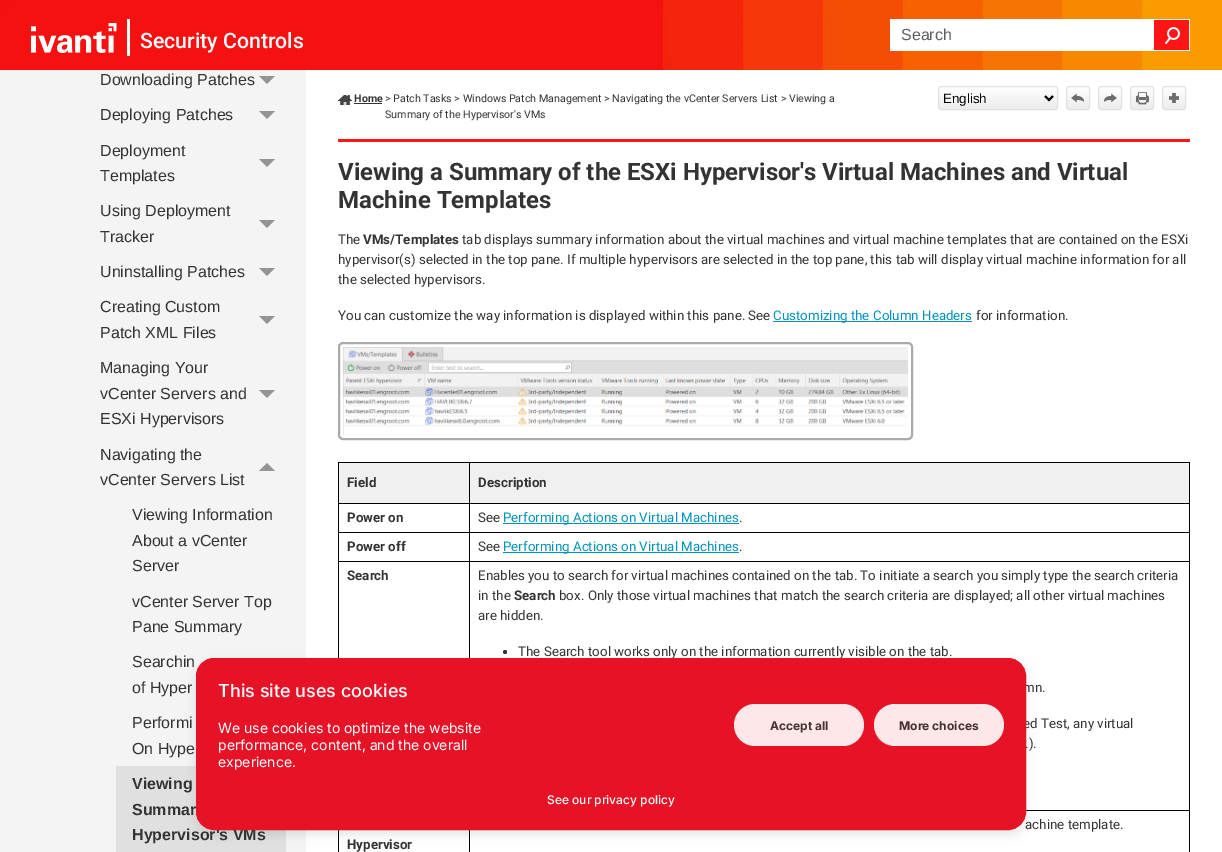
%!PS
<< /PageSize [1222 852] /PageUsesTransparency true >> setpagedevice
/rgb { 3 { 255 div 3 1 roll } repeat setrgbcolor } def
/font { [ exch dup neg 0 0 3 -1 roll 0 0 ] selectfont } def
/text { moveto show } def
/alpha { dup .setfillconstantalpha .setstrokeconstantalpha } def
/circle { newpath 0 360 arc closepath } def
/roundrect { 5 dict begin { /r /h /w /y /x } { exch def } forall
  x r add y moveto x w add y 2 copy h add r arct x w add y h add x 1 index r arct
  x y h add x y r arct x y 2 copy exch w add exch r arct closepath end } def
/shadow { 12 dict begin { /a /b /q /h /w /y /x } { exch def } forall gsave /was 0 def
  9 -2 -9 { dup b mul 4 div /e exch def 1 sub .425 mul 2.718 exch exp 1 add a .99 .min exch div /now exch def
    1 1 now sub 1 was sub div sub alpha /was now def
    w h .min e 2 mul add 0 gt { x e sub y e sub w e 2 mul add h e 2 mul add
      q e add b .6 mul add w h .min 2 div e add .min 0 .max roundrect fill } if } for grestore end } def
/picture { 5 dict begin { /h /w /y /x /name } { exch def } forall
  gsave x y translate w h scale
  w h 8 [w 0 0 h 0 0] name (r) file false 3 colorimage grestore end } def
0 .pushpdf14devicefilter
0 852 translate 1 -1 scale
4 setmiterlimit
244 244 244 rgb
0 0 1222 852 rectfill
(img_01.rgb) 0 0 1222 70 picture
(img_02.rgb) 31 19 99 37 picture
255 255 255 rgb
890 19 264 32 rectfill
255 21 21 rgb
1154 20 35 30 rectfill
(img_03.rgb) 1165 27 15 17 picture
255 255 255 rgb
1154 19 36 1 rectfill
1189 19 1 32 rectfill
1154 50 36 1 rectfill
306 70 916 782 rectfill
255 21 21 rgb
338 139 852 3 rectfill
(img_04.rgb) 338 95 14 10 picture
51 51 51 rgb
354 103 28 1 rectfill
gsave
938 86 120 24 3 roundrect clip newpath
gsave 938 87 moveto 120 0 rlineto 0 22 rlineto -120 0 rlineto closepath clip newpath
<< /ShadingType 2 /ColorSpace /DeviceRGB /Coords [998 87 998 109] /Extend [true true] /Function << /FunctionType 2 /Domain [0 1] /C0 [1 1 1] /C1 [0.925 0.925 0.925] /N 1 >> >> shfill grestore
grestore
225 225 225 rgb
938.5 86.5 119 23 2.5 roundrect stroke
0 0 0 rgb
2 setlinewidth
1045 96 moveto 4 4 rlineto 4 -4 rlineto stroke
gsave
1066 86 24 24 3 roundrect clip newpath
gsave 1066 87 moveto 24 0 rlineto 0 22 rlineto -24 0 rlineto closepath clip newpath
<< /ShadingType 2 /ColorSpace /DeviceRGB /Coords [1078 87 1078 109] /Extend [true true] /Function << /FunctionType 2 /Domain [0 1] /C0 [1 1 1] /C1 [0.925 0.925 0.925] /N 1 >> >> shfill grestore
grestore
225 225 225 rgb
1 setlinewidth
1066.5 86.5 23 23 2.5 roundrect stroke
(img_05.rgb) 1071 93 13 10 picture
gsave
1098 86 24 24 3 roundrect clip newpath
gsave 1098 87 moveto 24 0 rlineto 0 22 rlineto -24 0 rlineto closepath clip newpath
<< /ShadingType 2 /ColorSpace /DeviceRGB /Coords [1110 87 1110 109] /Extend [true true] /Function << /FunctionType 2 /Domain [0 1] /C0 [1 1 1] /C1 [0.925 0.925 0.925] /N 1 >> >> shfill grestore
grestore
1098.5 86.5 23 23 2.5 roundrect stroke
(img_06.rgb) 1104 93 13 10 picture
gsave
1130 86 24 24 3 roundrect clip newpath
gsave 1130 87 moveto 24 0 rlineto 0 22 rlineto -24 0 rlineto closepath clip newpath
<< /ShadingType 2 /ColorSpace /DeviceRGB /Coords [1142 87 1142 109] /Extend [true true] /Function << /FunctionType 2 /Domain [0 1] /C0 [1 1 1] /C1 [0.925 0.925 0.925] /N 1 >> >> shfill grestore
grestore
1130.5 86.5 23 23 2.5 roundrect stroke
(img_07.rgb) 1135 92 14 13 picture
gsave
1162 86 24 24 3 roundrect clip newpath
gsave 1162 87 moveto 24 0 rlineto 0 22 rlineto -24 0 rlineto closepath clip newpath
<< /ShadingType 2 /ColorSpace /DeviceRGB /Coords [1174 87 1174 109] /Extend [true true] /Function << /FunctionType 2 /Domain [0 1] /C0 [1 1 1] /C1 [0.925 0.925 0.925] /N 1 >> >> shfill grestore
grestore
1162.5 86.5 23 23 2.5 roundrect stroke
(img_08.rgb) 1169 93 10 10 picture
0 146 188 rgb
773 321 199 1 rectfill
167 171 172 rgb
2 setlinewidth
339 343 573 96 4 roundrect stroke
(img_09.rgb) 343 347 565 88 picture
0 0 0 rgb
338 462 852 1 rectfill
1189 462 1 390 rectfill
338 462 1 390 rectfill
240 240 240 rgb
339 463 130 40 rectfill
0 0 0 rgb
469 561 1 97 rectfill
469 561 721 1 rectfill
469 532 1 30 rectfill
469 532 721 1 rectfill
469 503 1 30 rectfill
469 503 721 1 rectfill
469 462 1 42 rectfill
338 503 132 1 rectfill
240 240 240 rgb
470 463 719 40 rectfill
0 0 0 rgb
338 532 132 1 rectfill
0 146 188 rgb
503 523 236 1 rectfill
0 0 0 rgb
338 561 132 1 rectfill
0 146 188 rgb
503 552 236 1 rectfill
0 0 0 rgb
1026 810 164 1 rectfill
51 51 51 rgb
505 652 2 circle fill
0 0 0 rgb
469 830 1 22 rectfill
148 148 148 rgb
259 76 moveto 16 0 rlineto -8 8 rlineto closepath fill
259 111 moveto 16 0 rlineto -8 8 rlineto closepath fill
259 159 moveto 16 0 rlineto -8 8 rlineto closepath fill
259 220 moveto 16 0 rlineto -8 8 rlineto closepath fill
259 268 moveto 16 0 rlineto -8 8 rlineto closepath fill
259 316 moveto 16 0 rlineto -8 8 rlineto closepath fill
259 390 moveto 16 0 rlineto -8 8 rlineto closepath fill
275 471 moveto -16 0 rlineto 8 -8 rlineto closepath fill
224 224 224 rgb
116 766 170 86 rectfill
0 0 0 rgb
196 663 830 172 18 5 0.1 shadow
/LiberationSans-Regular 16 font
95 95 95 rgb
(Search) 901 40 text
/Roboto-Medium 21.25 font
255 255 255 rgb
(Security Controls) 140 48 text
/Roboto-Bold 10.65 font
51 51 51 rgb
(Home) 354 102 text
/Roboto-Regular 10.65 font
(> Patch Tasks > Windows Patch Management > Navigating the vCenter Servers List > Viewing a) 385 102 text
(Summary of the Hypervisor's VMs) 385 118 text
/LiberationSans-Regular 13.33 font
0 0 0 rgb
(English) 943 103 text
/Roboto-Bold 24 font
51 51 51 rgb
(Viewing a Summary of the ESXi Hypervisor's Virtual Machines and Virtual) 338 180 text
(Machine Templates) 338 208 text
/Roboto-Regular 13.33 font
(The) 338 244 text
/Roboto-Bold 13.33 font
(VMs/Templates) 363 244 text
/Roboto-Regular 13.33 font
(tab displays summary information about the virtual machines and virtual machine templates that are contained on the ESXi) 462 244 text
(hypervisor\(s\) selected in the top pane. If multiple hypervisors are selected in the top pane, this tab will display virtual machine information for all) 338 264 text
(the selected hypervisors.) 338 284 text
(You can customize the way information is displayed within this pane. See) 338 320 text
0 146 188 rgb
(Customizing the Column Headers) 773 320 text
51 51 51 rgb
(for information.) 976 320 text
/Roboto-Bold 13.33 font
(Field) 347 487 text
(Description) 478 487 text
(Power on) 347 522 text
/Roboto-Regular 13.33 font
(See) 478 522 text
0 146 188 rgb
(Performing Actions on Virtual Machines) 503 522 text
51 51 51 rgb
(.) 739 522 text
/Roboto-Bold 13.33 font
(Power off) 347 551 text
/Roboto-Regular 13.33 font
(See) 478 551 text
0 146 188 rgb
(Performing Actions on Virtual Machines) 503 551 text
51 51 51 rgb
(.) 739 551 text
/Roboto-Bold 13.33 font
(Search) 347 580 text
/Roboto-Regular 13.33 font
(Enables you to search for virtual machines contained on the tab. To initiate a search you simply type the search criteria) 478 580 text
(in the) 478 600 text
/Roboto-Bold 13.33 font
(Search) 514 600 text
/Roboto-Regular 13.33 font
(box. Only those virtual machines that match the search criteria are displayed; all other virtual machines) 559 600 text
(are hidden.) 478 620 text
(The Search tool works only on the information currently visible on the tab.) 518 656 text
(mn.) 1023 692 text
(ed Test, any virtual) 1023 728 text
(.\).) 1025 748 text
(achine template.) 1025 829 text
/Roboto-Bold 13.33 font
(Hypervisor) 347 849 text
/LiberationSans-Regular 16 font
(Downloading Patches) 100 85 text
(Deploying Patches) 100 120 text
(Deployment) 100 156 text
(Templates) 100 181 text
(Using Deployment) 100 216 text
(Tracker) 100 242 text
(Uninstalling Patches) 100 277 text
(Creating Custom) 100 312 text
(Patch XML Files) 100 338 text
(Managing Your) 100 373 text
(vCenter Servers and) 100 399 text
(ESXi Hypervisors) 100 424 text
(Navigating the) 100 460 text
(vCenter Servers List) 100 485 text
(Viewing Information) 132 520 text
(About a vCenter) 132 546 text
(Server) 132 571 text
(vCenter Server Top) 132 607 text
(Pane Summary) 132 632 text
(Searchin) 132 667 text
(of Hyper) 132 693 text
(Performi) 132 728 text
(On Hype) 132 754 text
/LiberationSans-Bold 16 font
(Viewing) 132 789 text
(Summar) 132 815 text
(Hypervisor's VMs) 132 840 text
230 18 38 rgb
196.5 658.5 829 171 17.5 roundrect gsave fill grestore
1 setlinewidth
stroke
/Inter-Medium 18 font
255 255 255 rgb
(This site uses cookies) 218 697 text
/Inter-Regular 14 font
(We use cookies to optimize the website) 218 733 text
(performance, content, and the overall) 218 750 text
(experience.) 218 767 text
253 231 233 rgb
734 704 130 42 21 roundrect fill
/Inter-Bold 12 font
69 48 50 rgb
(Accept all) 770 730 text
253 231 233 rgb
874 704 130 42 21 roundrect fill
69 48 50 rgb
(More choices) 899 730 text
/Inter-Medium 12 font
255 255 255 rgb
(See our privacy policy) 547 804 text
.poppdf14devicefilter showpage
